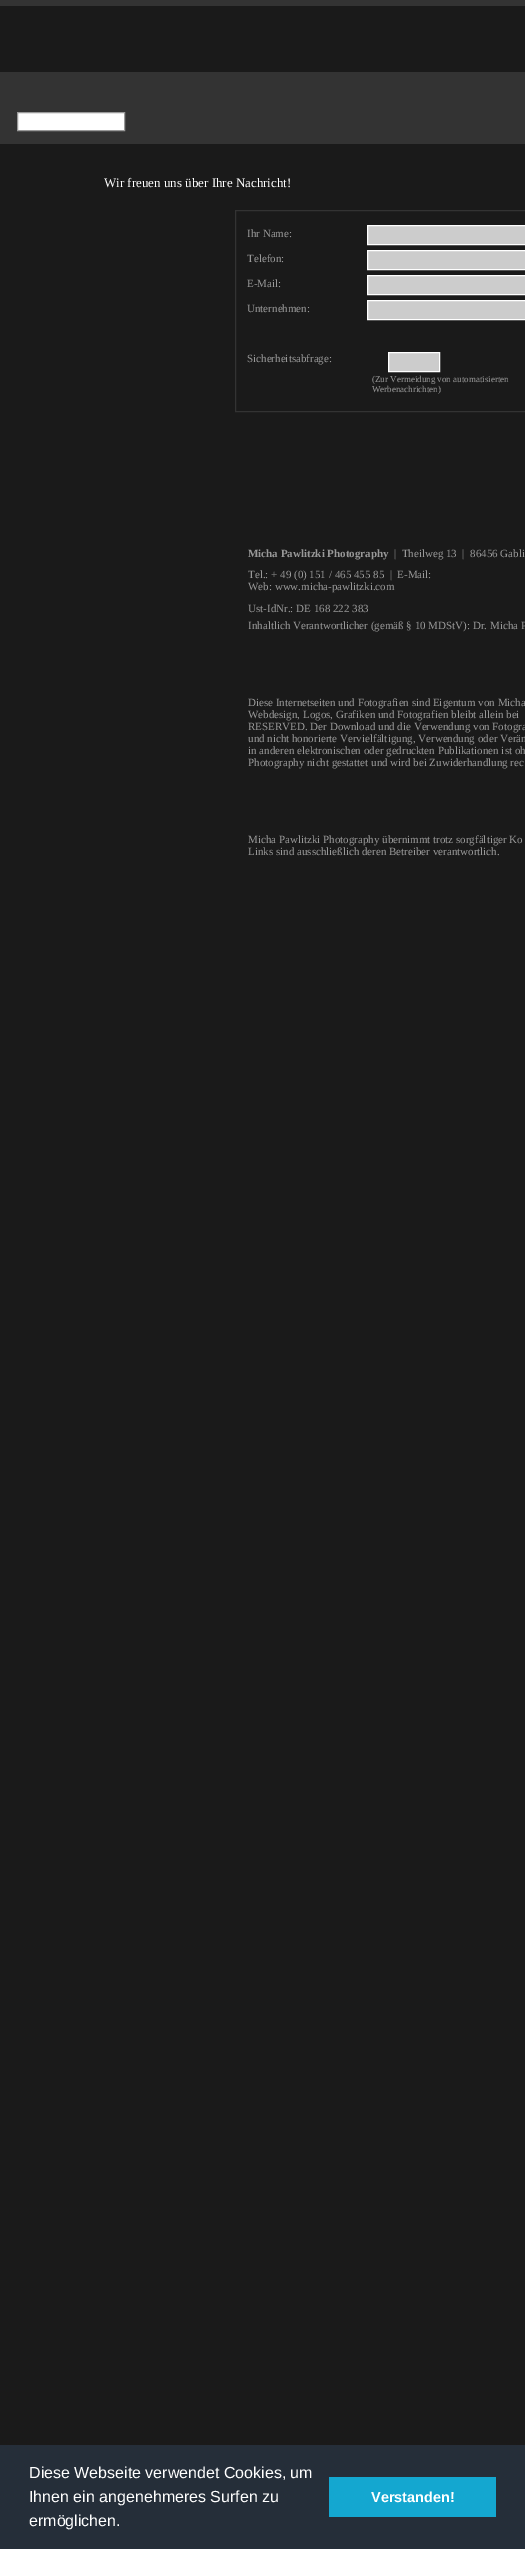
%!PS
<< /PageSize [525 2549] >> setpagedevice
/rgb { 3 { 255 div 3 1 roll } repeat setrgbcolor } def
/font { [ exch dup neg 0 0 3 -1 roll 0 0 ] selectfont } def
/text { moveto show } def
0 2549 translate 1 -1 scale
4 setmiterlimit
26 26 26 rgb
0 0 525 2549 rectfill
51 51 51 rgb
0 0 525 6 rectfill
0 72 525 72 rectfill
255 255 255 rgb
17.5 112.5 moveto 107 0 rlineto 0 18 rlineto -107 0 rlineto closepath gsave fill grestore
153 153 153 rgb
stroke
51 51 51 rgb
235.5 210.5 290 201 rectstroke
204 204 204 rgb
367.5 225.5 moveto 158 0 rlineto 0 19 rlineto -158 0 rlineto closepath gsave fill grestore
255 255 255 rgb
stroke
204 204 204 rgb
367.5 250.5 moveto 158 0 rlineto 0 19 rlineto -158 0 rlineto closepath gsave fill grestore
255 255 255 rgb
stroke
204 204 204 rgb
367.5 275.5 moveto 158 0 rlineto 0 19 rlineto -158 0 rlineto closepath gsave fill grestore
255 255 255 rgb
stroke
204 204 204 rgb
367.5 300.5 moveto 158 0 rlineto 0 19 rlineto -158 0 rlineto closepath gsave fill grestore
255 255 255 rgb
stroke
204 204 204 rgb
388.5 352.5 moveto 51 0 rlineto 0 19 rlineto -51 0 rlineto closepath gsave fill grestore
255 255 255 rgb
stroke
37 46 57 rgb
0 2445 525 104 rectfill
20 167 208 rgb
329 2477 167 40 rectfill
/LiberationSerif-Regular 13 font
255 255 255 rgb
(Wir freuen uns über Ihre Nachricht!) 104 187 text
/LiberationSerif-Regular 11 font
153 153 153 rgb
(Ihr Name:) 247 237 text
(Telefon:) 247 262 text
(E-Mail:) 247 287 text
(Unternehmen:) 247 312 text
(Sicherheitsabfrage:) 247 362 text
/LiberationSerif-Regular 9 font
(\(Zur Vermeidung von automatisierten) 372 382 text
(Werbenachrichten\)) 372 392 text
/LiberationSerif-Bold 11 font
(Micha Pawlitzki Photography) 248 557 text
/LiberationSerif-Regular 11 font
(|  Theilweg 13  |  86456 Gabli) 394 557 text
(Tel.: + 49 \(0\) 151 / 465 455 85  |  E-Mail:) 248 578 text
(Web: www.micha-pawlitzki.com) 248 590 text
(Ust-IdNr.: DE 168 222 383) 248 612 text
(Inhaltlich Verantwortlicher \(gemäß § 10 MDStV\): Dr. Micha P) 248 629 text
(Diese Internetseiten und Fotografien sind Eigentum von Micha) 248 706 text
(Webdesign, Logos, Grafiken und Fotografien bleibt allein bei) 248 718 text
(RESERVED. Der Download und die Verwendung von Fotogra) 248 730 text
(und nicht honorierte Vervielfältigung, Verwendung oder Verän) 248 742 text
(in anderen elektronischen oder gedruckten Publikationen ist oh) 248 754 text
(Photography nicht gestattet und wird bei Zuwiderhandlung rec) 248 766 text
(Micha Pawlitzki Photography übernimmt trotz sorgfältiger Ko) 248 843 text
(Links sind ausschließlich deren Betreiber verantwortlich.) 248 855 text
/LiberationSans-Regular 16 font
255 255 255 rgb
(Diese Webseite verwendet Cookies, um) 29 2478 text
(Ihnen ein angenehmeres Surfen zu) 29 2502 text
(ermöglichen.) 29 2526 text
/LiberationSans-Bold 14.5 font
(Verstanden!) 371 2502 text
showpage
